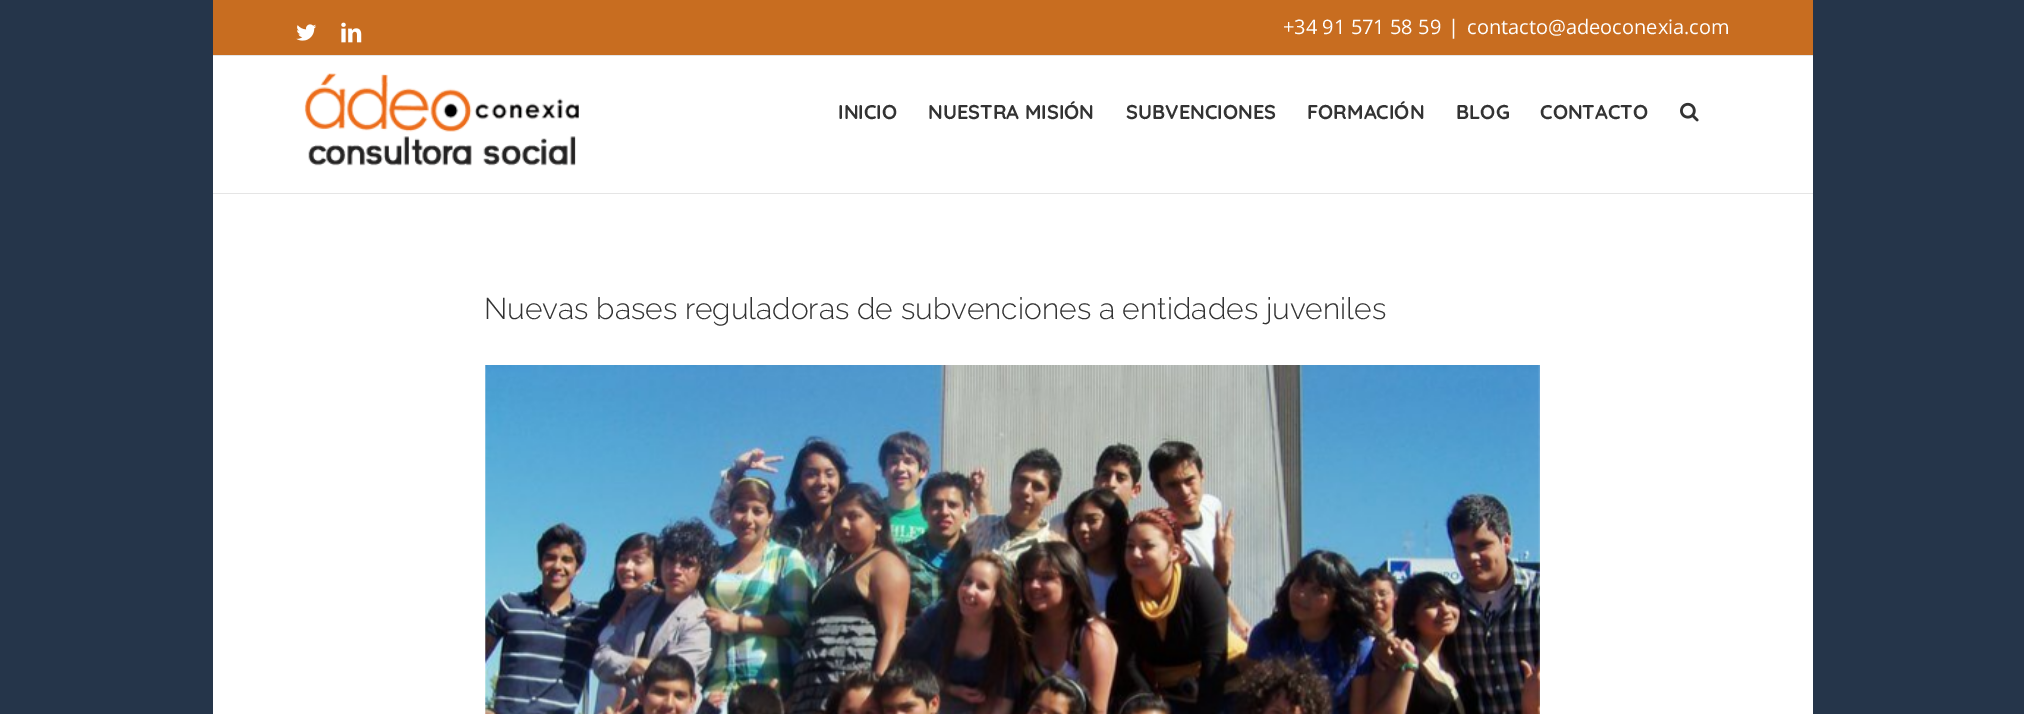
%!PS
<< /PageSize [2024 714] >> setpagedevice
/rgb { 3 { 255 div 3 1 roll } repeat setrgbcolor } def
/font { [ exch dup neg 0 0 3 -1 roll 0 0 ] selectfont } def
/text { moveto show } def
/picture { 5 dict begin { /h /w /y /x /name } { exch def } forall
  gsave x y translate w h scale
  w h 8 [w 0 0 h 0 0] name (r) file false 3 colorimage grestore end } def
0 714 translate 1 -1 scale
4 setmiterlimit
37 53 74 rgb
0 0 2024 714 rectfill
200 109 32 rgb
213 0 1600 55 rectfill
229 229 229 rgb
213 55 1600 1 rectfill
(img_01.rgb) 296 24 21 17 picture
(img_02.rgb) 341 22 21 21 picture
255 255 255 rgb
213 56 1600 137 rectfill
229 229 229 rgb
213 193 1600 1 rectfill
(img_03.rgb) 304 73 275 93 picture
(img_04.rgb) 1680 102 19 20 picture
255 255 255 rgb
213 194 1600 520 rectfill
(img_05.rgb) 485 365 1055 349 picture
/OpenSans-Regular 20 font
(+34 91 571 58 59) 1283 34 text
(|) 1448 34 text
(contacto@adeoconexia.com) 1467 34 text
/Quicksand-Light 20 font
51 51 51 rgb
(INICIO) 838 119 text
(NUESTRA MISIÓN) 928 119 text
(SUBVENCIONES) 1126 119 text
(FORMACIÓN) 1307 119 text
(BLOG) 1456 119 text
(CONTACTO) 1540 119 text
/Raleway-Light 30 font
(Nuevas bases reguladoras de subvenciones a entidades juveniles) 484 319 text
showpage
